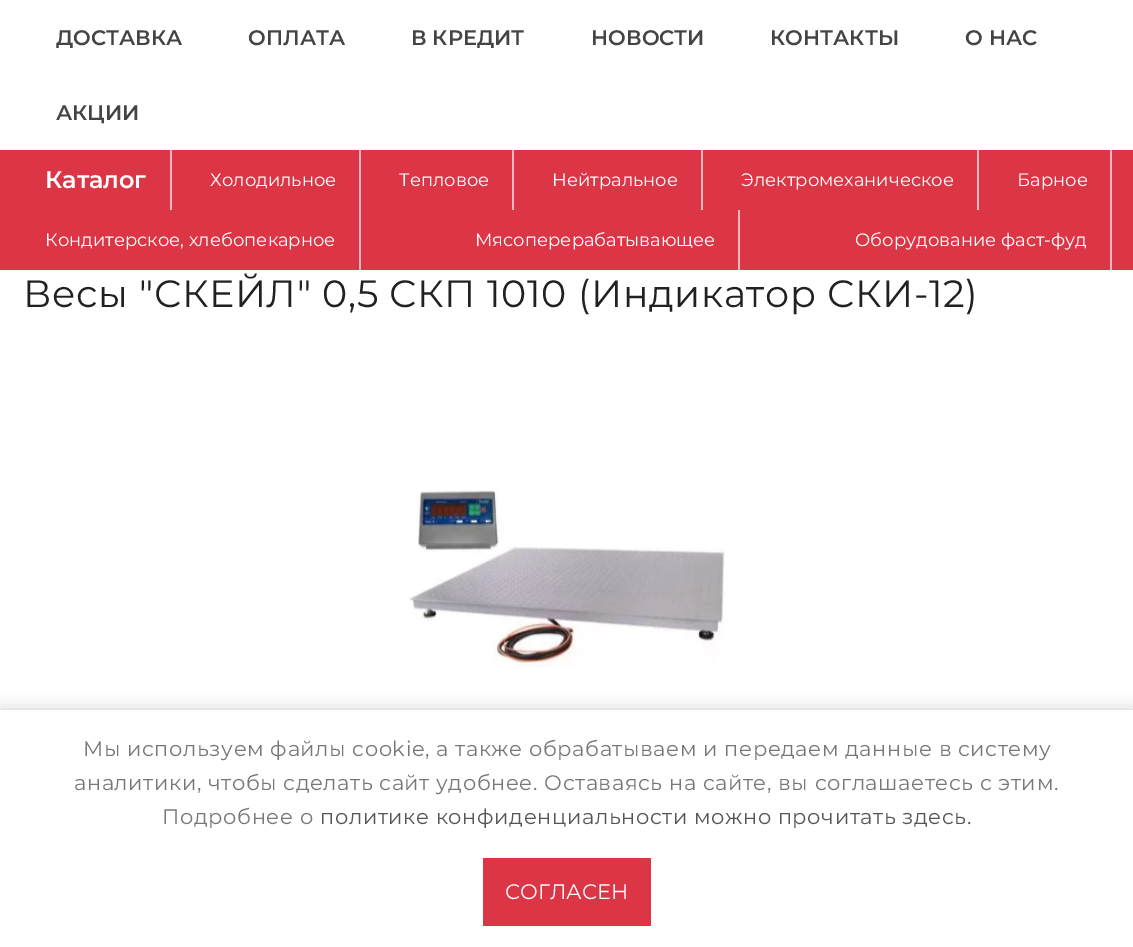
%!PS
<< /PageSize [1133 947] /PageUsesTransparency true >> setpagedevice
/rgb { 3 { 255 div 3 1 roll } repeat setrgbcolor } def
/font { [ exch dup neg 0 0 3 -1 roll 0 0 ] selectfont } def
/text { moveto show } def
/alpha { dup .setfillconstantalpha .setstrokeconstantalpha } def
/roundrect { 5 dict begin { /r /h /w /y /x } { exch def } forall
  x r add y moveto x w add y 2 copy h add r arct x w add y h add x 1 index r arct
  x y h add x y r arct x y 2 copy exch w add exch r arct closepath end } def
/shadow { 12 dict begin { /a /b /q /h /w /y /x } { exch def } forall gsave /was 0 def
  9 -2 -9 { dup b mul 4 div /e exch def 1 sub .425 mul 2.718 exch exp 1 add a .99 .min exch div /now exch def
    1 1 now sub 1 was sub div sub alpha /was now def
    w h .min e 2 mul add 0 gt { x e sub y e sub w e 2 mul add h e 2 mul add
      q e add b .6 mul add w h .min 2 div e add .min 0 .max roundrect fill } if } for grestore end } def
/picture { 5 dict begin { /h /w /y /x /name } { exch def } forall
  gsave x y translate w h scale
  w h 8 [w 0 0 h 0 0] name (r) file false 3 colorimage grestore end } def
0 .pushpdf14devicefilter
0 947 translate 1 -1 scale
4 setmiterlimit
255 255 255 rgb
0 0 1133 947 rectfill
220 53 69 rgb
0 150 1133 120 rectfill
243 184 190 rgb
170 150 2 60 rectfill
359 150 2 120 rectfill
512 150 2 60 rectfill
701 150 2 60 rectfill
977 150 2 60 rectfill
1110 150 2 120 rectfill
738 210 2 60 rectfill
(img_01.rgb) 409 490 316 178 picture
206 206 206 rgb
0 710 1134 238 0 7.5 1 shadow
255 255 255 rgb
0 710 1133 237 rectfill
220 53 69 rgb
483 858 168 68 rectfill
/Montserrat-SemiBold 21 font
68 68 68 rgb
(ДОСТАВКА) 56 45 text
(ОПЛАТА) 248 45 text
(В КРЕДИТ) 411 45 text
(НОВОСТИ) 591 45 text
(КОНТАКТЫ) 770 45 text
(О НАС) 965 45 text
(АКЦИИ) 56 120 text
/Montserrat-SemiBold 24 font
255 255 255 rgb
(Каталог) 45 188 text
/Montserrat-Regular 18 font
(Холодильное) 210 186 text
(Тепловое) 399 186 text
(Нейтральное) 552 186 text
(Электромеханическое) 741 186 text
(Барное) 1017 186 text
(Кондитерское, хлебопекарное) 45 246 text
(Мясоперерабатывающее) 475 246 text
(Оборудование фаст-фуд) 855 246 text
/Montserrat-Regular 38 font
33 33 33 rgb
23 307 moveto 0.6 0 (Весы "СКЕЙЛ" 0,5 СКП 1010 \(Индикатор СКИ-12\)) ashow
/Montserrat-Regular 21 font
119 119 119 rgb
83 756 moveto 0.6 0 (Мы используем файлы cookie, а также обрабатываем и передаем данные в систему) ashow
74 790 moveto 0.6 0 (аналитики, чтобы сделать сайт удобнее. Оставаясь на сайте, вы соглашаетесь с этим.) ashow
162 824 moveto 0.6 0 (Подробнее о) ashow
85 85 85 rgb
320 824 moveto 0.6 0 (политике конфиденциальности можно прочитать здесь.) ashow
255 255 255 rgb
(СОГЛАСЕН) 505 899 text
.poppdf14devicefilter showpage
